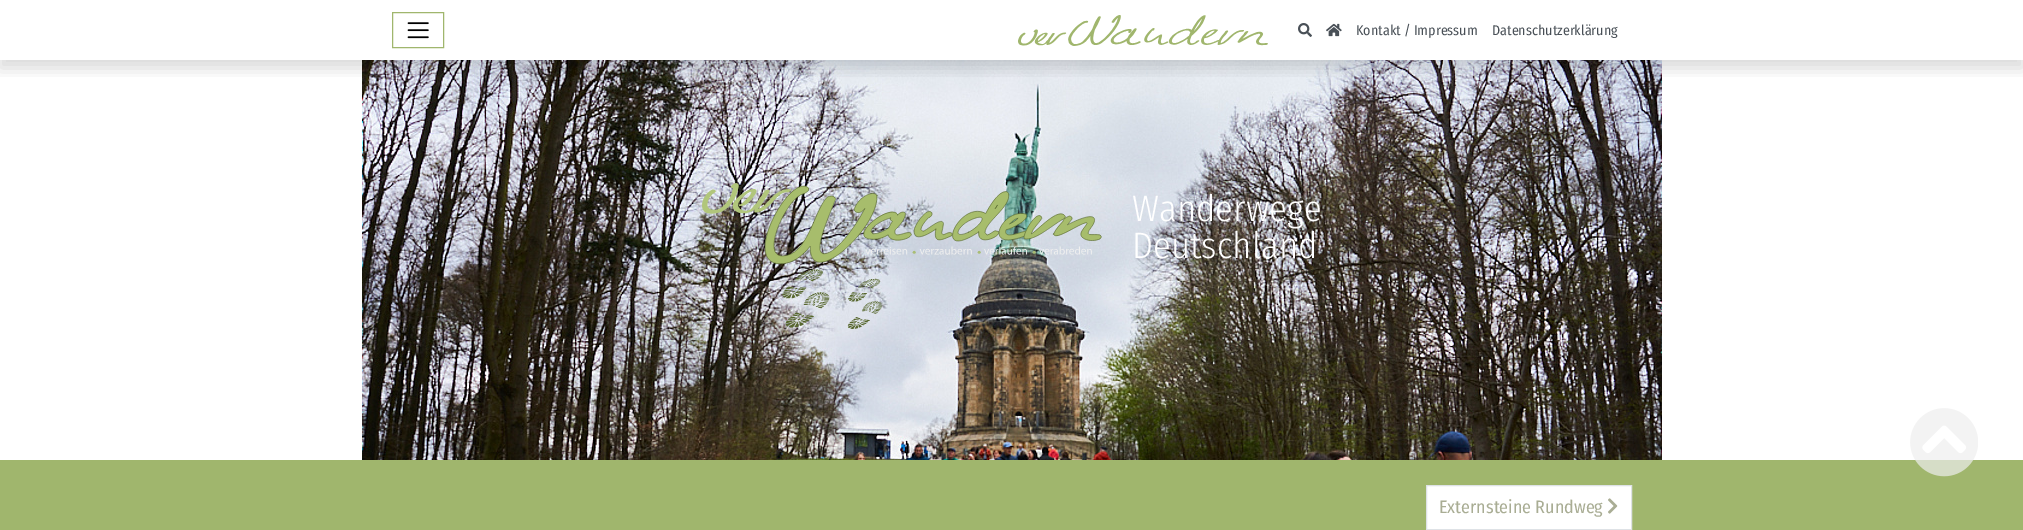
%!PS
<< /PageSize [2023 530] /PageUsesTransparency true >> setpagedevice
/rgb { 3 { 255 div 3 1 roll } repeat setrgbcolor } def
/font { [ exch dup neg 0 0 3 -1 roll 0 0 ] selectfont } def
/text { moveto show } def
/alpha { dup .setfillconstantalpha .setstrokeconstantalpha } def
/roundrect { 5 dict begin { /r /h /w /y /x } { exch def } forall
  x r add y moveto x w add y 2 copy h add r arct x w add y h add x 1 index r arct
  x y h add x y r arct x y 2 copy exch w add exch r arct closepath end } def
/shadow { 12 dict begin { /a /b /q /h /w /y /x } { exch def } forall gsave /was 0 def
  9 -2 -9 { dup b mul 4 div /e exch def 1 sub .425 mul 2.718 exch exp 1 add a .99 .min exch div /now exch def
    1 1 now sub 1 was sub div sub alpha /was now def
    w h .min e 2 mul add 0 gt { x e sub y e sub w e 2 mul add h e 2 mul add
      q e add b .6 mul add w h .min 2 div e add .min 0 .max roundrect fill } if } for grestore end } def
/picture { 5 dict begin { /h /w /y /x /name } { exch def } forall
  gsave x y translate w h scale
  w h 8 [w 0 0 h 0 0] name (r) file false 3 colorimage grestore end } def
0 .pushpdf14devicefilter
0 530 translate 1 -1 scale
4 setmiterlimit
255 255 255 rgb
0 0 2023 530 rectfill
(img_05.rgb) 362 60 1300 400 picture
gsave
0 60 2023 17 rectclip
0 0 0 rgb
0 8 2023 60 0 8 0.15 shadow
grestore
160 182 109 rgb
392.5 12.5 51 35 rectstroke
(img_01.rgb) 407 22 22 17 picture
(img_02.rgb) 1018 15 250 31 picture
(img_03.rgb) 1298 23 14 14 picture
(img_04.rgb) 1326 23 16 14 picture
(img_06.rgb) 702 183 400 146 picture
0 460 2023 38 rectfill
(img_07.rgb) 1910 408 68 69 picture
607 485 moveto 809 0 rlineto 335 0 607 6 607 13 rcurveto 0 32 rlineto -2023 0 rlineto 0 -32 rlineto 0 -7 272 -13 607 -13 rcurveto closepath fill
255 255 255 rgb
1426.5 485.5 moveto 205 0 rlineto 0 44 rlineto -205 0 rlineto closepath gsave fill grestore
222 226 230 rgb
stroke
(img_08.rgb) 1608 498 10 16 picture
/FiraSansCondensed-Regular 14 font
73 80 87 rgb
(Kontakt / Impressum) 1356 35 text
(Datenschutzerklärung) 1492 35 text
/FiraSansCondensed-Light 36.75 font
255 255 255 rgb
(Wanderwege) 1132 221 text
(Deutschland) 1132 258 text
/FiraSansCondensed-Regular 18 font
169 173 148 rgb
(Externsteine Rundweg) 1439 513 text
.poppdf14devicefilter showpage
